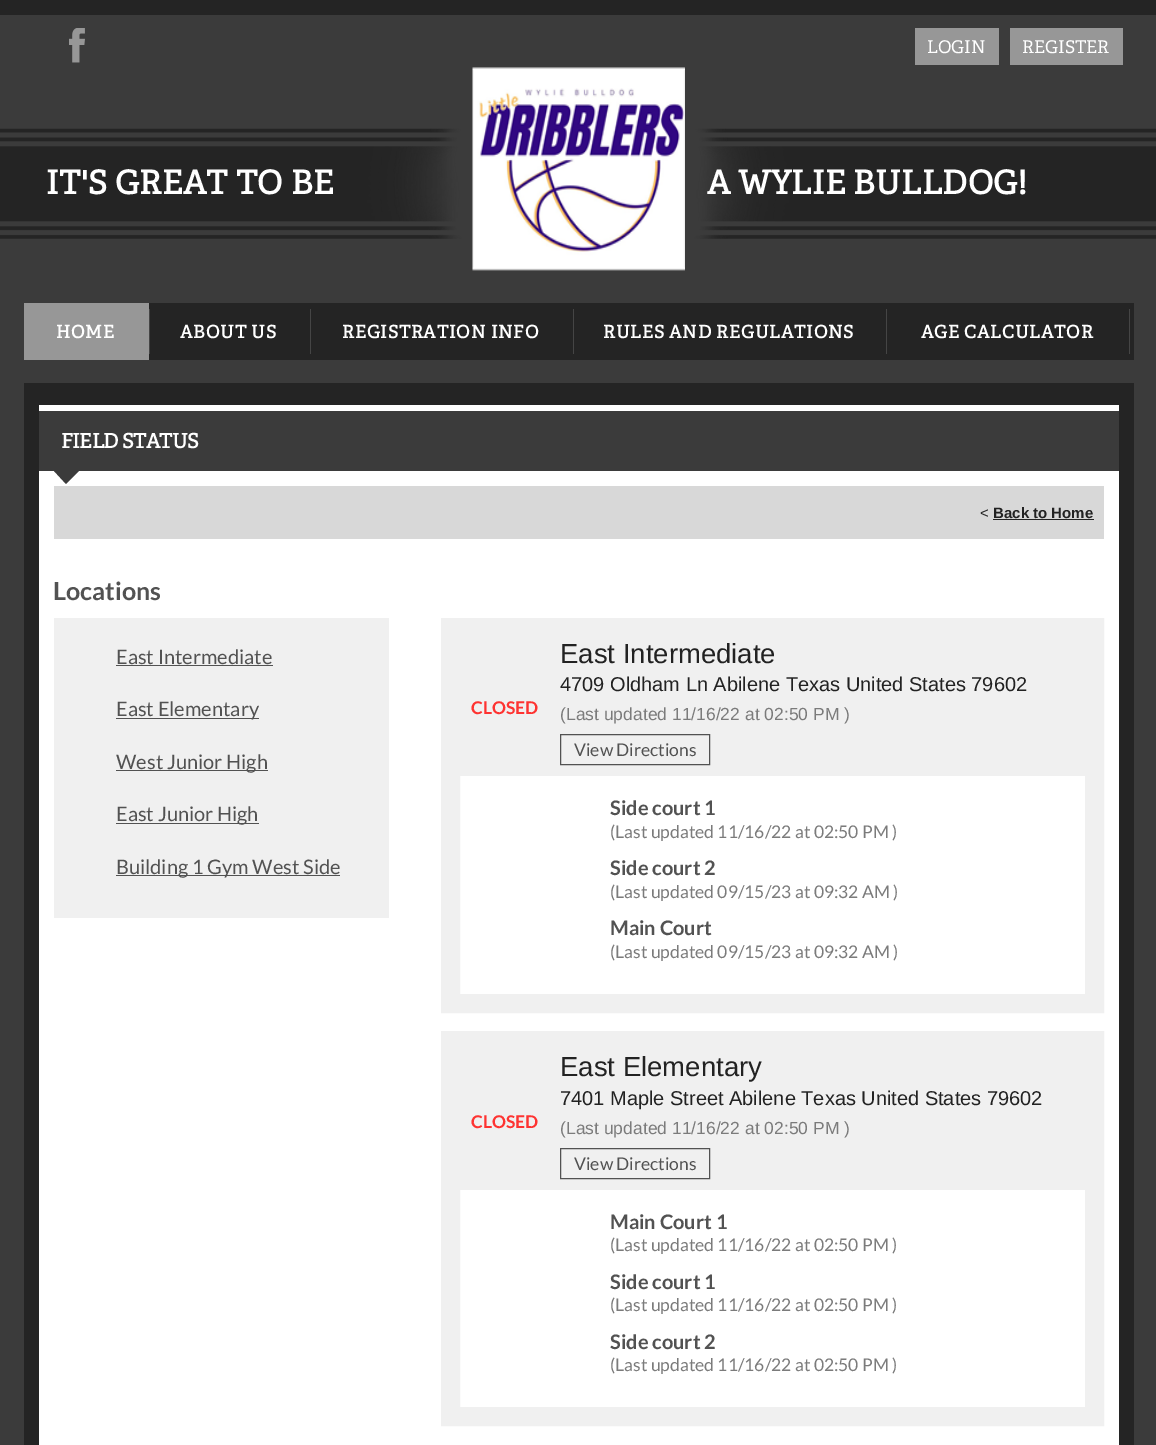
%!PS
<< /PageSize [1156 1445] >> setpagedevice
/rgb { 3 { 255 div 3 1 roll } repeat setrgbcolor } def
/font { [ exch dup neg 0 0 3 -1 roll 0 0 ] selectfont } def
/text { moveto show } def
/picture { 5 dict begin { /h /w /y /x /name } { exch def } forall
  gsave x y translate w h scale
  w h 8 [w 0 0 h 0 0] name (r) file false 3 colorimage grestore end } def
0 1445 translate 1 -1 scale
4 setmiterlimit
59 59 59 rgb
0 0 1156 1445 rectfill
36 36 36 rgb
0 0 1156 15 rectfill
(img_01.rgb) 69 28 16 35 picture
151 151 151 rgb
915 28 84 37 rectfill
1010 28 113 37 rectfill
(img_02.rgb) 0 128 1156 111 picture
(img_03.rgb) 472 67 213 204 picture
36 36 36 rgb
149 303 985 57 rectfill
151 151 151 rgb
24 303 125 57 rectfill
69 69 69 rgb
149 309 1 45 rectfill
310 309 1 45 rectfill
573 309 1 45 rectfill
886 309 1 45 rectfill
1129 309 1 45 rectfill
36 36 36 rgb
24 383 1110 1062 rectfill
59 59 59 rgb
39 411 1080 60 rectfill
255 255 255 rgb
39 405 1080 6 rectfill
39 471 1080 974 rectfill
59 59 59 rgb
54 471 moveto 25 0 rlineto -13 13 rlineto closepath fill
216 216 216 rgb
54 486 1050 53 rectfill
34 34 34 rgb
993 519 101 1 rectfill
240 240 240 rgb
54 618 335 300 rectfill
82 82 82 rgb
116 665 157 1 rectfill
116 718 143 1 rectfill
116 770 152 1 rectfill
116 823 143 1 rectfill
116 875 224 1 rectfill
240 240 240 rgb
19 setlinewidth
450.5 627.5 644 376 rectstroke
460 637 625 139 rectfill
82 82 82 rgb
1 setlinewidth
560.5 734.5 149 30 rectstroke
240 240 240 rgb
19 setlinewidth
450.5 1040.5 644 376 rectstroke
460 1050 625 140 rectfill
82 82 82 rgb
1 setlinewidth
560.5 1148.5 149 30 rectstroke
/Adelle-Regular 17.5 font
255 255 255 rgb
(LOGIN) 927 53 text
(REGISTER) 1022 53 text
/Adelle-Bold 32.5 font
46 194 moveto 0.4 0 (IT'S GREAT TO BE) ashow
707 194 moveto 0.4 0 (A WYLIE BULLDOG!) ashow
/Adelle-Bold 17.5 font
56 338 moveto 0.75 0 (HOME) ashow
180 338 moveto 0.75 0 (ABOUT US) ashow
342 338 moveto 0.75 0 (REGISTRATION INFO) ashow
603 338 moveto 0.75 0 (RULES AND REGULATIONS) ashow
921 338 moveto 0.75 0 (AGE CALCULATOR) ashow
/Adelle-Bold 20 font
61 448 moveto -0.6 0 (FIELD STATUS) ashow
/LiberationSans-Regular 15 font
34 34 34 rgb
(<) 980 518 text
/LiberationSans-Bold 15 font
(Back to Home) 993 518 text
/Lato-Bold 25 font
82 82 82 rgb
(Locations) 53 600 text
/Lato-Regular 20 font
(East Intermediate) 116 664 text
(East Elementary) 116 716 text
(West Junior High) 116 769 text
(East Junior High) 116 821 text
(Building 1 Gym West Side) 116 874 text
/Lato-Bold 17.5 font
254 51 49 rgb
(CLOSED) 471 714 text
/LiberationSans-Regular 27.5 font
34 34 34 rgb
(East Intermediate) 560 663 text
/LiberationSans-Regular 20 font
(4709 Oldham Ln Abilene Texas United States 79602) 560 691 text
/LiberationSans-Regular 17.5 font
123 123 123 rgb
(\(Last updated 11/16/22 at 02:50 PM \)) 560 720 text
/Lato-Regular 17.5 font
82 82 82 rgb
(View Directions) 574 756 text
/Lato-Bold 20 font
(Side court 1) 610 815 text
/Lato-Regular 17.5 font
123 123 123 rgb
(\(Last updated 11/16/22 at 02:50 PM \)) 610 838 text
/Lato-Bold 20 font
82 82 82 rgb
(Side court 2) 610 875 text
/Lato-Regular 17.5 font
123 123 123 rgb
(\(Last updated 09/15/23 at 09:32 AM \)) 610 898 text
/Lato-Bold 20 font
82 82 82 rgb
(Main Court) 610 935 text
/Lato-Regular 17.5 font
123 123 123 rgb
(\(Last updated 09/15/23 at 09:32 AM \)) 610 958 text
/Lato-Bold 17.5 font
254 51 49 rgb
(CLOSED) 471 1128 text
/LiberationSans-Regular 27.5 font
34 34 34 rgb
(East Elementary) 560 1076 text
/LiberationSans-Regular 20 font
(7401 Maple Street Abilene Texas United States 79602) 560 1105 text
/LiberationSans-Regular 17.5 font
123 123 123 rgb
(\(Last updated 11/16/22 at 02:50 PM \)) 560 1134 text
/Lato-Regular 17.5 font
82 82 82 rgb
(View Directions) 574 1170 text
/Lato-Bold 20 font
(Main Court 1) 610 1229 text
/Lato-Regular 17.5 font
123 123 123 rgb
(\(Last updated 11/16/22 at 02:50 PM \)) 610 1251 text
/Lato-Bold 20 font
82 82 82 rgb
(Side court 1) 610 1289 text
/Lato-Regular 17.5 font
123 123 123 rgb
(\(Last updated 11/16/22 at 02:50 PM \)) 610 1311 text
/Lato-Bold 20 font
82 82 82 rgb
(Side court 2) 610 1349 text
/Lato-Regular 17.5 font
123 123 123 rgb
(\(Last updated 11/16/22 at 02:50 PM \)) 610 1371 text
showpage
